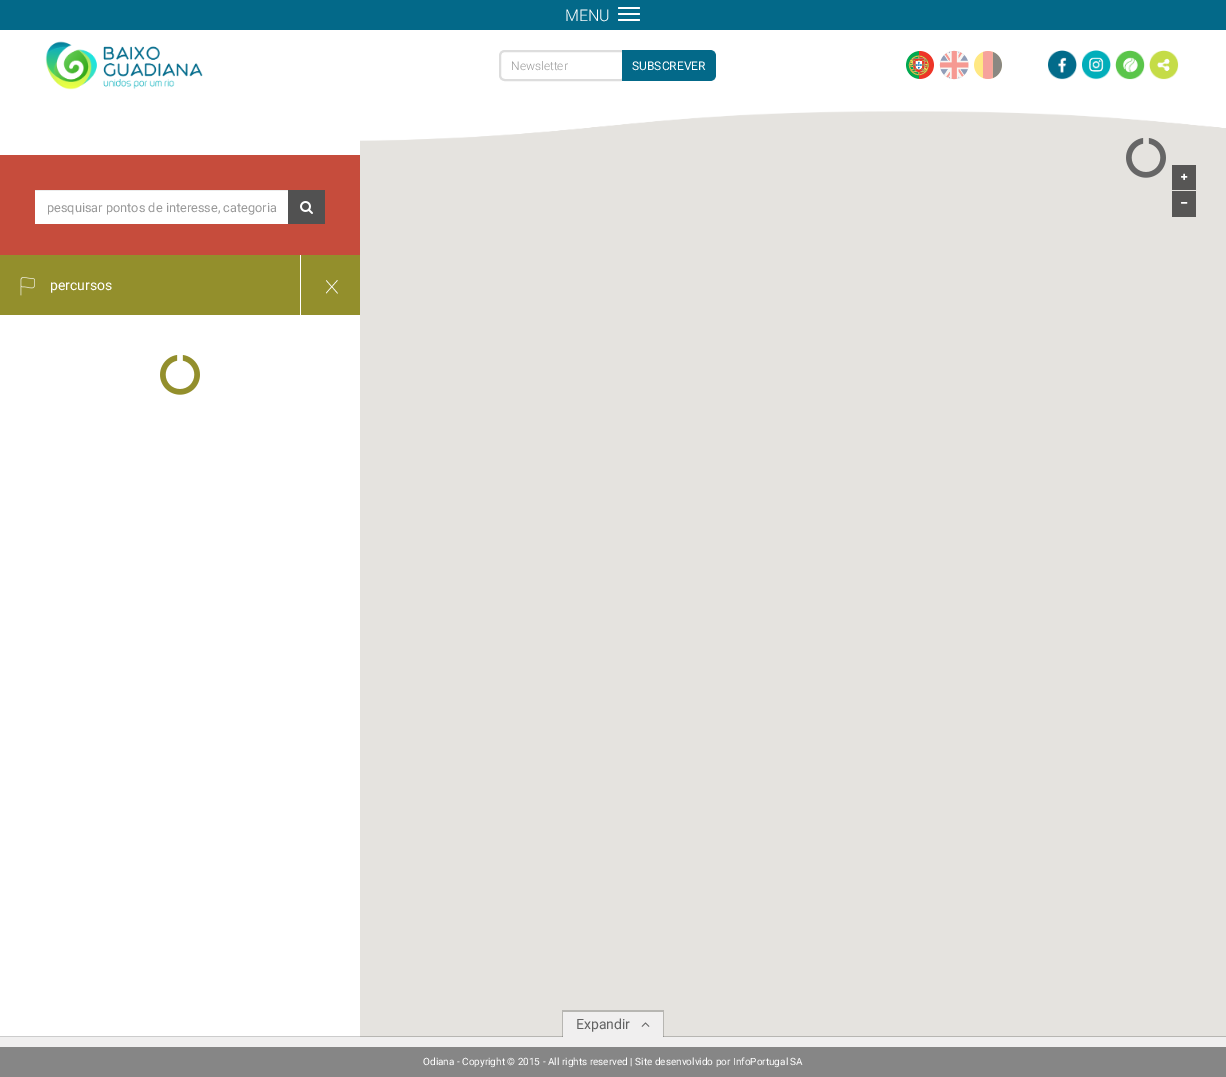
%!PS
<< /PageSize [1226 1077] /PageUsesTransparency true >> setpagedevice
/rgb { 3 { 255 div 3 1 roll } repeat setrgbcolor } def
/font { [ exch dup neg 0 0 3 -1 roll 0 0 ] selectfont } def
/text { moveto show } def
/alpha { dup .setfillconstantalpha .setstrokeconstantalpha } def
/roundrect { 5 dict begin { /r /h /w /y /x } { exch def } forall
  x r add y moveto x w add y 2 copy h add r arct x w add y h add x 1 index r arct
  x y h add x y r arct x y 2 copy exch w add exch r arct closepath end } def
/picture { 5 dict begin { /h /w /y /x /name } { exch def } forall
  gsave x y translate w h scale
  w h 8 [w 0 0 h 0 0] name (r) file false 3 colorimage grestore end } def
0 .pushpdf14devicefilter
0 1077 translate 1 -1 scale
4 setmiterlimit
255 255 255 rgb
0 0 1226 1077 rectfill
(img_01.rgb) 45 41 158 49 picture
3 105 137 rgb
0 0 1226 30 rectfill
255 255 255 rgb
618 7 22 2 1 roundrect fill
618 13 22 2 1 roundrect fill
618 19 22 2 1 roundrect fill
221 221 221 rgb
2 setlinewidth
505 51 moveto 116 0 rlineto 1.5 0 3 1.5 3 3 rcurveto 0 23 rlineto 0 1.5 -1.5 3 -3 3 rcurveto -116 0 rlineto -3 0 -5 -2 -5 -5 rcurveto 0 -19 rlineto 0 -3 2 -5 5 -5 rcurveto closepath stroke
3 105 137 rgb
622 50 moveto 88 0 rlineto 3.5 0 6 2.5 6 6 rcurveto 0 19 rlineto 0 3.5 -2.5 6 -6 6 rcurveto -88 0 rlineto closepath fill
(img_02.rgb) 906 51 28 28 picture
(img_03.rgb) 939 50 30 30 picture
(img_04.rgb) 974 51 28 28 picture
(img_05.rgb) 1048 50 29 30 picture
(img_06.rgb) 1082 50 29 30 picture
(img_07.rgb) 1115 50 30 30 picture
(img_08.rgb) 1149 50 30 30 picture
229 227 223 rgb
360 110 866 927 rectfill
(img_09.rgb) 360 110 866 31 picture
198 76 60 rgb
0 155 360 100 rectfill
255 255 255 rgb
35 191 253 33 rectfill
236 236 236 rgb
35 190 254 1 rectfill
81 81 81 rgb
288 190 37 34 rectfill
(img_10.rgb) 300 201 13 13 picture
147 143 44 rgb
0 255 360 60 rectfill
(img_11.rgb) 20 277 15 19 picture
255 255 255 rgb
300 255 1 60 rectfill
(img_12.rgb) 326 280 12 14 picture
(img_13.rgb) 160 355 40 40 picture
(img_14.rgb) 1126 138 40 40 picture
87 86 85 rgb
1172 165 24 25 rectfill
(img_15.rgb) 1181 173 7 7 picture
1172 191 24 26 rectfill
(img_16.rgb) 1181 202 7 2 picture
0.2 alpha
0 0 0 rgb
1 setlinewidth
-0.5 1036.5 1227 11 rectstroke
1 alpha
240 239 239 rgb
0 1037 1226 10 rectfill
0.2 alpha
0 0 0 rgb
562 1010 moveto 0 27 rlineto 1 0 rlineto 0 -25 rlineto 100 0 rlineto 0 25 rlineto 1 0 rlineto 0 -27 rlineto closepath fill
1 alpha
240 239 239 rgb
563 1012 100 25 rectfill
(img_17.rgb) 641 1022 9 5 picture
134 134 134 rgb
0 1047 1226 30 rectfill
/Roboto-Light 16 font
255 255 255 rgb
(MENU) 565 21 text
/Roboto-Light 12 font
153 153 153 rgb
(Newsletter) 511 70 text
/Roboto-Regular 12 font
255 255 255 rgb
(SUBSCREVER) 632 70 text
/Roboto-Regular 12.75 font
153 153 153 rgb
(pesquisar pontos de interesse, categoria) 47 212 text
/Roboto-Regular 14 font
255 255 255 rgb
(percursos) 50 290 text
98 98 98 rgb
(Expandir) 576 1029 text
/Roboto-Regular 10 font
255 255 255 rgb
(Odiana - Copyright © 2015 - All rights reserved | Site desenvolvido por InfoPortugal SA) 423 1065 text
.poppdf14devicefilter showpage
